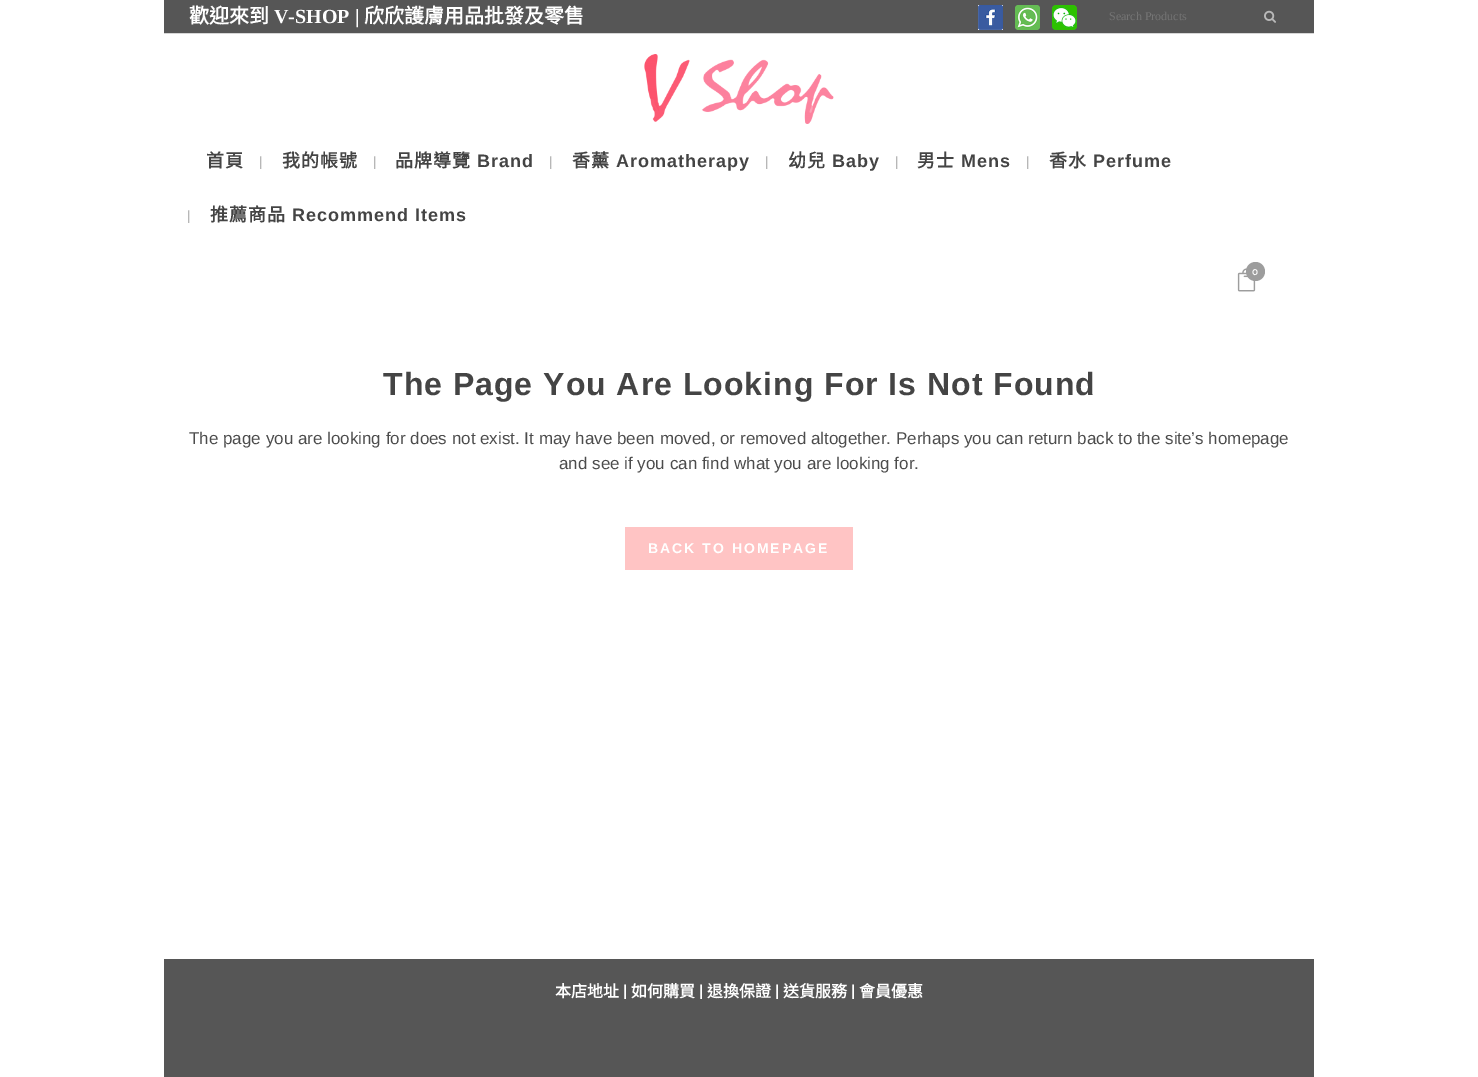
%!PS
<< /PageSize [1478 1077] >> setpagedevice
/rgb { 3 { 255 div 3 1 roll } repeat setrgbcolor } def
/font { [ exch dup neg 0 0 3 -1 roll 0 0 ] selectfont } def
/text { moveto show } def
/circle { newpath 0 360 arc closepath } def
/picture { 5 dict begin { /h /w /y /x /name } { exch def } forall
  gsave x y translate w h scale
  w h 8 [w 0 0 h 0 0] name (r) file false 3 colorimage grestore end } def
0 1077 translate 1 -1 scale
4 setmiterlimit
255 255 255 rgb
0 0 1478 1077 rectfill
86 86 86 rgb
164 0 1150 33 rectfill
214 214 214 rgb
164 33 1150 1 rectfill
(img_01.rgb) 978 5 25 25 picture
(img_02.rgb) 1015 5 25 25 picture
(img_03.rgb) 1052 5 25 25 picture
(img_04.rgb) 1264 10 12 13 picture
(img_05.rgb) 644 54 190 70 picture
(img_06.rgb) 1237 268 19 24 picture
157 157 157 rgb
1255.5 271.5 9.5 circle fill
255 196 196 rgb
625 527 228 43 rectfill
86 86 86 rgb
164 959 1150 118 rectfill
/NotoSansCJKTC-Bold 20 font
255 255 255 rgb
(歡迎來到) 189 23 text
/LiberationSerif-Bold 20 font
(V-SHOP |) 274 23 text
/NotoSansCJKTC-Bold 20 font
(欣欣護膚用品批發及零售) 364 23 text
/LiberationSerif-Regular 12 font
117 117 117 rgb
(Search Products) 1109 20 text
/NotoSansCJKTC-Bold 18 font
68 68 68 rgb
206 167 moveto 1 0 (首頁) ashow
/Roboto-Regular 15 font
158 158 158 rgb
(|) 259 167 text
/NotoSansCJKTC-Bold 18 font
68 68 68 rgb
282 167 moveto 1 0 (我的帳號) ashow
/Roboto-Regular 15 font
158 158 158 rgb
(|) 373 167 text
/NotoSansCJKTC-Bold 18 font
68 68 68 rgb
395 167 moveto 1 0 (品牌導覽) ashow
/LiberationSans-Bold 18 font
477 167 moveto 1 0 (Brand) ashow
/Roboto-Regular 15 font
158 158 158 rgb
(|) 549 167 text
/NotoSansCJKTC-Bold 18 font
68 68 68 rgb
572 167 moveto 1 0 (香薰) ashow
/LiberationSans-Bold 18 font
616 167 moveto 1 0 (Aromatherapy) ashow
/Roboto-Regular 15 font
158 158 158 rgb
(|) 765 167 text
/NotoSansCJKTC-Bold 18 font
68 68 68 rgb
788 167 moveto 1 0 (幼兒) ashow
/LiberationSans-Bold 18 font
832 167 moveto 1 0 (Baby) ashow
/Roboto-Regular 15 font
158 158 158 rgb
(|) 895 167 text
/NotoSansCJKTC-Bold 18 font
68 68 68 rgb
917 167 moveto 1 0 (男士) ashow
/LiberationSans-Bold 18 font
961 167 moveto 1 0 (Mens) ashow
/Roboto-Regular 15 font
158 158 158 rgb
(|) 1026 167 text
/NotoSansCJKTC-Bold 18 font
68 68 68 rgb
1049 167 moveto 1 0 (香水) ashow
/LiberationSans-Bold 18 font
1093 167 moveto 1 0 (Perfume) ashow
/Roboto-Regular 15 font
158 158 158 rgb
(|) 187 221 text
/NotoSansCJKTC-Bold 18 font
68 68 68 rgb
210 221 moveto 1 0 (推薦商品) ashow
/LiberationSans-Bold 18 font
292 221 moveto 1 0 (Recommend Items) ashow
/Raleway-SemiBold 10 font
255 255 255 rgb
(0) 1252 275 text
/LiberationSans-Bold 32 font
68 68 68 rgb
383 395 moveto 1 0 (The Page You Are Looking For Is Not Found) ashow
/LiberationSans-Regular 17 font
76 76 76 rgb
(The page you are looking for does not exist. It may have been moved, or removed altogether. Perhaps you can return back to the site’s homepage) 189 444 text
(and see if you can find what you are looking for.) 559 469 text
/LiberationSans-Bold 14 font
255 255 255 rgb
648 553 moveto 2 0 (BACK TO HOMEPAGE) ashow
/NotoSansCJKTC-Bold 16 font
(本店地址) 555 997 text
/Raleway-Bold 16 font
(|) 623 997 text
/NotoSansCJKTC-Bold 16 font
(如何購買) 631 997 text
/Raleway-Bold 16 font
(|) 699 997 text
/NotoSansCJKTC-Bold 16 font
(退換保證) 707 997 text
/Raleway-Bold 16 font
(|) 775 997 text
/NotoSansCJKTC-Bold 16 font
(送貨服務) 783 997 text
/Raleway-Bold 16 font
(|) 851 997 text
/NotoSansCJKTC-Bold 16 font
(會員優惠) 859 997 text
showpage
